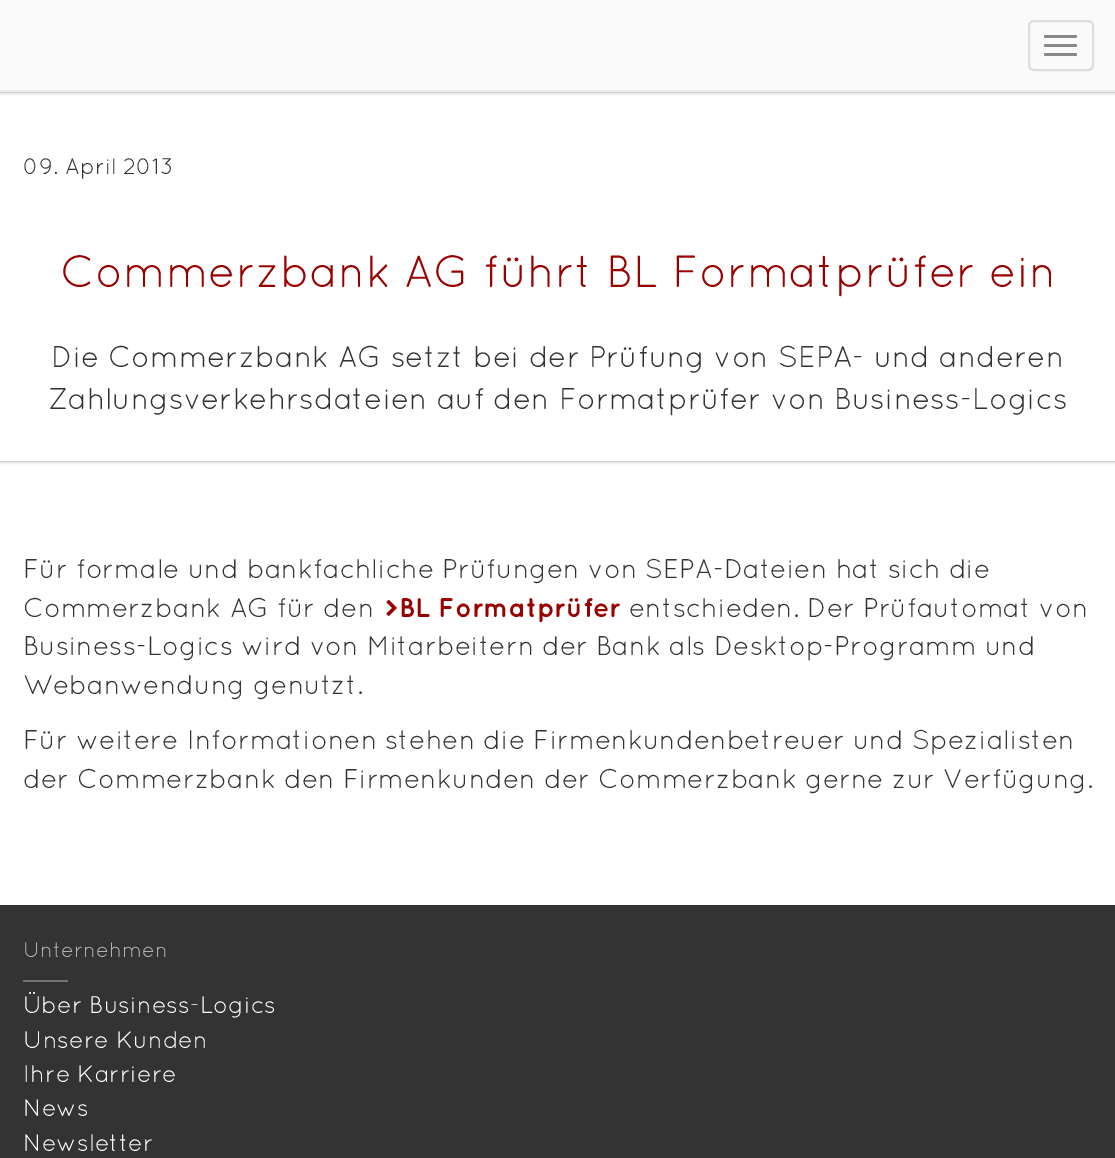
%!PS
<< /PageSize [1115 1158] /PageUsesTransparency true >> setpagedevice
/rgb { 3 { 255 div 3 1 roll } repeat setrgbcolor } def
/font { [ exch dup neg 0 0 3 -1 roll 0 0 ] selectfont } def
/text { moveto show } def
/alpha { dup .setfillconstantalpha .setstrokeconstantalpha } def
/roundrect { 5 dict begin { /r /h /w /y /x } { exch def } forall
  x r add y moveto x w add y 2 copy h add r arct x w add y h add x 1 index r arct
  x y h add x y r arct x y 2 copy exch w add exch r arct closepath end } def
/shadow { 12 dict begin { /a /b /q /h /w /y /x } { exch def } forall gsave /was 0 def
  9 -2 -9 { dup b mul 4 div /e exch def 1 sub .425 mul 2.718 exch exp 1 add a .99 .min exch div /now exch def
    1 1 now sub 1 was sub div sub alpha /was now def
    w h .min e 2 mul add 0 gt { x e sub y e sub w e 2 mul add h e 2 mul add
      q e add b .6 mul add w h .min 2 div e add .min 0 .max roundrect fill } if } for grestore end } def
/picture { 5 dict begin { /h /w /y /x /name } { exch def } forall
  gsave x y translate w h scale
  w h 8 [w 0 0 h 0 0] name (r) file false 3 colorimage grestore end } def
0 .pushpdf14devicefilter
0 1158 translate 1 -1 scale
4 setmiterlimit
255 255 255 rgb
0 0 1115 1158 rectfill
0 0 0 rgb
0 0 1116 92 0 2 0.4 shadow
gsave
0 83 moveto 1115 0 rlineto 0 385 rlineto -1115 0 rlineto closepath 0 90 moveto 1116 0 rlineto 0 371 rlineto -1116 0 rlineto closepath eoclip newpath
0 90 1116 371 0 2 0.4 shadow
grestore
250 250 250 rgb
0 0 1115 90 rectfill
233 233 233 rgb
0 90 1115 2 rectfill
221 221 221 rgb
2 setlinewidth
1029 21 64 49 5 roundrect stroke
136 136 136 rgb
1044 35 33 3 1.5 roundrect fill
1044 44 33 3 1.5 roundrect fill
1044 53 33 3 1.5 roundrect fill
(img_01.rgb) 386 599 11 17 picture
51 51 51 rgb
0 905 1115 253 rectfill
115 115 115 rgb
23 980 45 2 rectfill
/Quicksand-Regular 22.5 font
51 51 51 rgb
(09. April 2013) 23 174 text
/Quicksand-Regular 45 font
153 0 0 rgb
(Commerzbank AG führt BL Formatprüfer ein) 60 287 text
/Quicksand-Regular 30 font
51 51 51 rgb
(Die Commerzbank AG setzt bei der Prüfung von SEPA- und anderen) 51 367 text
(Zahlungsverkehrsdateien auf den Formatprüfer von Business-Logics) 48 409 text
/Quicksand-Regular 27 font
(Für formale und bankfachliche Prüfungen von SEPA-Dateien hat sich die) 23 578 text
(Commerzbank AG für den) 23 617 text
/Quicksand-Bold 27 font
153 0 0 rgb
(BL Formatprüfer) 399 617 text
/Quicksand-Regular 27 font
51 51 51 rgb
(entschieden. Der Prüfautomat von) 629 617 text
(Business-Logics wird von Mitarbeitern der Bank als Desktop-Programm und) 23 655 text
(Webanwendung genutzt.) 23 694 text
(Für weitere Informationen stehen die Firmenkundenbetreuer und Spezialisten) 23 749 text
(der Commerzbank den Firmenkunden der Commerzbank gerne zur Verfügung.) 23 788 text
/Quicksand-Regular 21 font
179 179 179 rgb
(Unternehmen) 23 957 text
/Quicksand-Regular 24 font
255 255 255 rgb
(Über Business-Logics) 23 1013 text
(Unsere Kunden) 23 1048 text
(Ihre Karriere) 23 1082 text
(News) 23 1116 text
(Newsletter) 23 1151 text
.poppdf14devicefilter showpage
